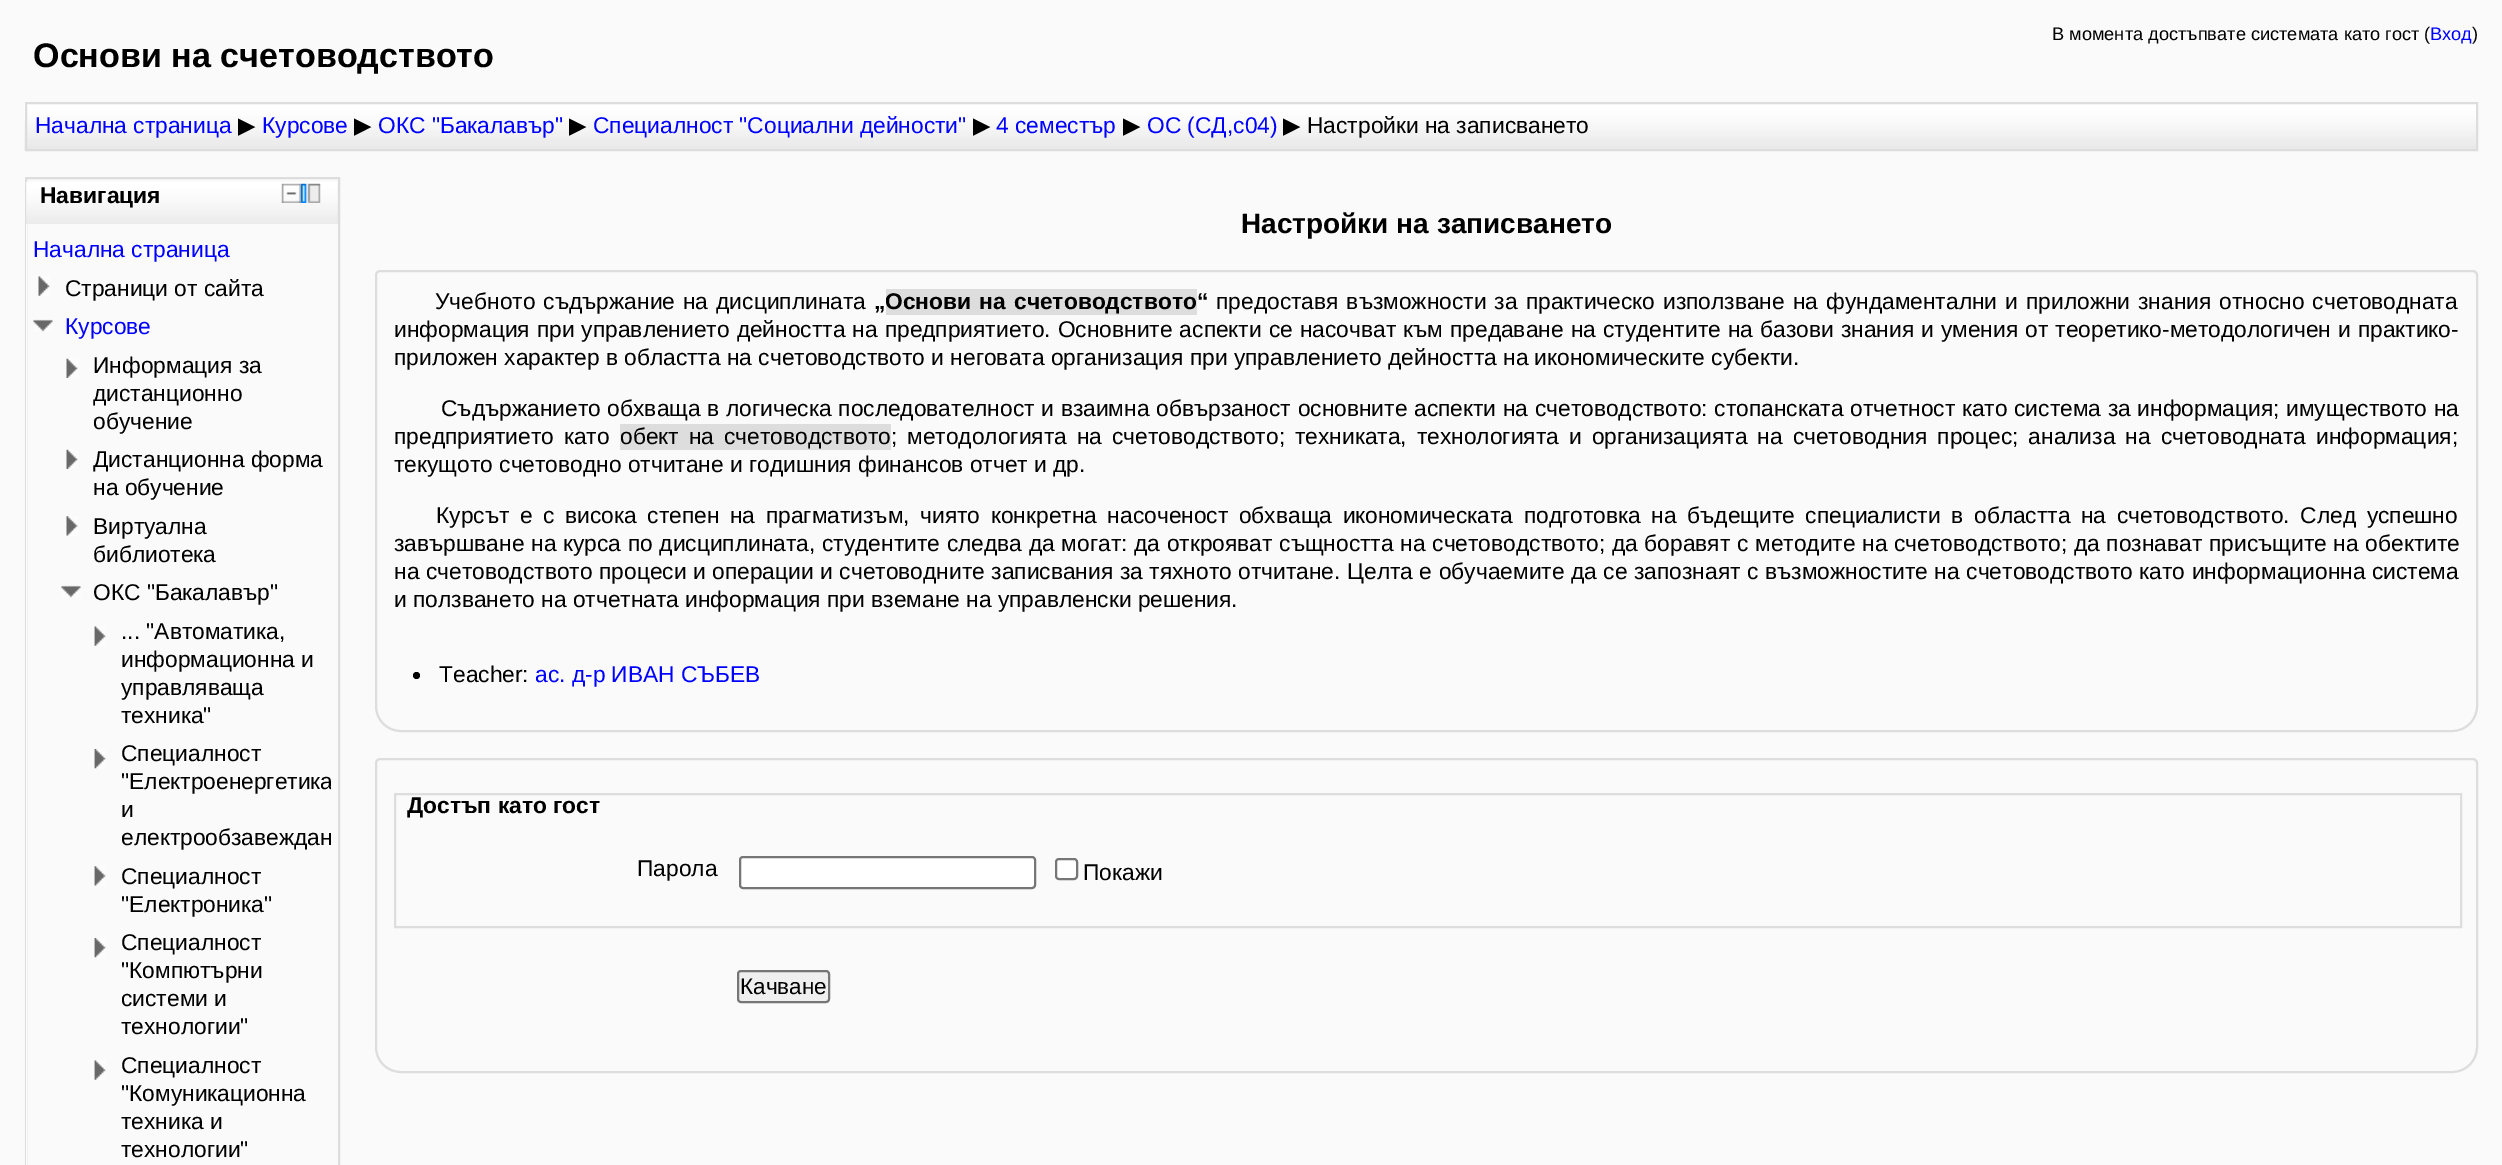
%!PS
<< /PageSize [2502 1165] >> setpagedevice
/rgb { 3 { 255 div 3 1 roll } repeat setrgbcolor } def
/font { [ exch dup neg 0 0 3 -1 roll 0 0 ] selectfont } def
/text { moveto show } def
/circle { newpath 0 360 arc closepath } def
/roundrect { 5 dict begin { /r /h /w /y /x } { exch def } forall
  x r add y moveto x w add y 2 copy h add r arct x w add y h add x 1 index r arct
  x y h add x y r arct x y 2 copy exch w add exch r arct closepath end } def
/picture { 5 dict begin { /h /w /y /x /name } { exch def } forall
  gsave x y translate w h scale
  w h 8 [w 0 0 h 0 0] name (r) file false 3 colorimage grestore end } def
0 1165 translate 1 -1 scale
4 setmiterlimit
250 250 250 rgb
0 0 2502 1165 rectfill
(img_01.rgb) 24 103 2452 48 picture
221 221 221 rgb
2 setlinewidth
26 103 2451 47 rectstroke
26 178 313 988 rectstroke
(img_02.rgb) 26 182 312 42 picture
(img_03.rgb) 281 183 20 20 picture
(img_04.rgb) 301 183 20 20 picture
252 252 252 rgb
26 224 1 941 rectfill
(img_05.rgb) 38 276 12 20 picture
(img_06.rgb) 33 319 20 13 picture
(img_07.rgb) 66 358 12 20 picture
(img_07.rgb) 66 449 12 20 picture
(img_08.rgb) 66 516 12 20 picture
(img_06.rgb) 61 585 20 13 picture
(img_09.rgb) 94 626 12 20 picture
(img_10.rgb) 94 749 12 20 picture
(img_11.rgb) 94 866 12 20 picture
(img_10.rgb) 94 938 12 20 picture
(img_09.rgb) 94 1060 12 20 picture
221 221 221 rgb
380 271 moveto 2093 0 rlineto 2 0 4 2 4 4 rcurveto 0 431 rlineto 0 14 -11 25 -25 25 rcurveto -2051 0 rlineto -14 0 -25 -11 -25 -25 rcurveto 0 -431 rlineto 0 -2 2 -4 4 -4 rcurveto closepath stroke
886 289 311 26 rectfill
620 424 271 26 rectfill
0 0 0 rgb
416.5 675.5 3.5 circle fill
221 221 221 rgb
380 759 moveto 2093 0 rlineto 2 0 4 2 4 4 rcurveto 0 284 rlineto 0 14 -11 25 -25 25 rcurveto -2051 0 rlineto -14 0 -25 -11 -25 -25 rcurveto 0 -284 rlineto 0 -2 2 -4 4 -4 rcurveto closepath stroke
395 794 2066 133 rectstroke
255 255 255 rgb
740 857 295 31 3 roundrect gsave fill grestore
118 118 118 rgb
stroke
255 255 255 rgb
1056 859 21 20 3 roundrect gsave fill grestore
118 118 118 rgb
stroke
239 239 239 rgb
738 971 91 31 3 roundrect gsave fill grestore
118 118 118 rgb
stroke
/LiberationSans-Regular 18.2 font
0 0 0 rgb
(В момента достъпвате системата като гост \() 2052 40 text
0 0 255 rgb
(Вход) 2430 40 text
0 0 0 rgb
(\)) 2472 40 text
/LiberationSans-Bold 34.1 font
(Основи на счетоводството) 33 67 text
/LiberationSans-Regular 22.75 font
0 0 255 rgb
(Начална страница) 35 133 text
/DejaVuSans-Regular 22.75 font
0 0 0 rgb
(▶) 238 133 text
/LiberationSans-Regular 22.75 font
0 0 255 rgb
(Курсове) 262 133 text
/DejaVuSans-Regular 22.75 font
0 0 0 rgb
(▶) 354 133 text
/LiberationSans-Regular 22.75 font
0 0 255 rgb
(ОКС "Бакалавър") 378 133 text
/DejaVuSans-Regular 22.75 font
0 0 0 rgb
(▶) 569 133 text
/LiberationSans-Regular 22.75 font
0 0 255 rgb
(Специалност "Социални дейности") 593 133 text
/DejaVuSans-Regular 22.75 font
0 0 0 rgb
(▶) 973 133 text
/LiberationSans-Regular 22.75 font
0 0 255 rgb
(4 семестър) 996 133 text
/DejaVuSans-Regular 22.75 font
0 0 0 rgb
(▶) 1123 133 text
/LiberationSans-Regular 22.75 font
0 0 255 rgb
(ОС \(СД,с04\)) 1147 133 text
/DejaVuSans-Regular 22.75 font
0 0 0 rgb
(▶) 1283 133 text
/LiberationSans-Regular 22.75 font
(Настройки на записването) 1307 133 text
/LiberationSans-Bold 22.75 font
(Навигация) 40 203 text
/LiberationSans-Regular 22.75 font
0 0 255 rgb
(Начална страница) 33 257 text
0 0 0 rgb
(Страници от сайта) 65 296 text
0 0 255 rgb
(Курсове) 65 334 text
0 0 0 rgb
(Информация за) 93 373 text
(дистанционно) 93 401 text
(обучение) 93 429 text
(Дистанционна форма) 93 467 text
(на обучение) 93 495 text
(Виртуална) 93 534 text
(библиотека) 93 562 text
(ОКС "Бакалавър") 93 600 text
(... "Автоматика,) 121 639 text
(информационна и) 121 667 text
(управляваща) 121 695 text
(техника") 121 723 text
(Специалност) 121 761 text
gsave
89 735 242 123 rectclip
("Електроенергетика) 121 789 text
grestore
(и) 121 817 text
(електрообзавеждан) 121 845 text
(Специалност) 121 884 text
("Електроника") 121 912 text
(Специалност) 121 950 text
("Компютърни) 121 978 text
(системи и) 121 1006 text
(технологии") 121 1034 text
(Специалност) 121 1073 text
("Комуникационна) 121 1101 text
(техника и) 121 1129 text
(технологии") 121 1157 text
/LiberationSans-Bold 28 font
(Настройки на записването) 1241 233 text
/LiberationSans-Regular 22.75 font
435 309 moveto 1.75 0 32 (Учебното съдържание на дисциплината) widthshow
/LiberationSans-Bold 22.75 font
885 309 moveto 2 0 32 (Основи на счетоводството) widthshow
(“) 1197 309 text
/LiberationSans-Regular 22.75 font
1216 309 moveto 1.75 0 32 (предоставя възможности за практическо използване на фундаментални и приложни знания относно счетоводната) widthshow
/LiberationSans-Bold 22.75 font
(„) 874 309 text
/LiberationSans-Regular 22.75 font
394 337 moveto 0.75 0 32 (информация при управлението дейността на предприятието. Основните аспекти се насочват към предаване на студентите на базови знания и умения от теоретико-методологичен и практико-) widthshow
(приложен характер в областта на счетоводството и неговата организация при управлението дейността на икономическите субекти.) 394 365 text
441 416 moveto 0.4 0 32 (Съдържанието обхваща в логическа последователност и взаимна обвързаност основните аспекти на счетоводството: стопанската отчетност като система за информация; имуществото на) widthshow
394 444 moveto 3.75 0 32 (предприятието като) widthshow
620 444 moveto 3.75 0 32 (обект на счетоводството; методологията на счетоводството; техниката, технологията и организацията на счетоводния процес; анализа на счетоводната информация;) widthshow
(текущото счетоводно отчитане и годишния финансов отчет и др.) 394 472 text
436 523 moveto 4.3 0 32 (Курсът е с висока степен на прагматизъм, чиято конкретна насоченост обхваща икономическата подготовка на бъдещите специалисти в областта на счетоводството. След успешно) widthshow
394 551 moveto 0.4 0 32 (завършване на курса по дисциплината, студентите следва да могат: да открояват същността на счетоводството; да боравят с методите на счетоводството; да познават присъщите на обектите) widthshow
394 579 moveto 0.25 0 32 (на счетоводството процеси и операции и счетоводните записвания за тяхното отчитане. Целта е обучаемите да се запознаят с възможностите на счетоводството като информационна система) widthshow
(и ползването на отчетната информация при вземане на управленски решения.) 394 607 text
(Teacher:) 439 682 text
0 0 255 rgb
(ас. д-р ИВАН СЪБЕВ) 535 682 text
/LiberationSans-Bold 22.75 font
0 0 0 rgb
(Достъп като гост) 407 813 text
/LiberationSans-Regular 22.75 font
(Парола) 637 876 text
(Покажи) 1083 880 text
/LiberationSans-Regular 22.5 font
(Качване) 740 994 text
showpage
